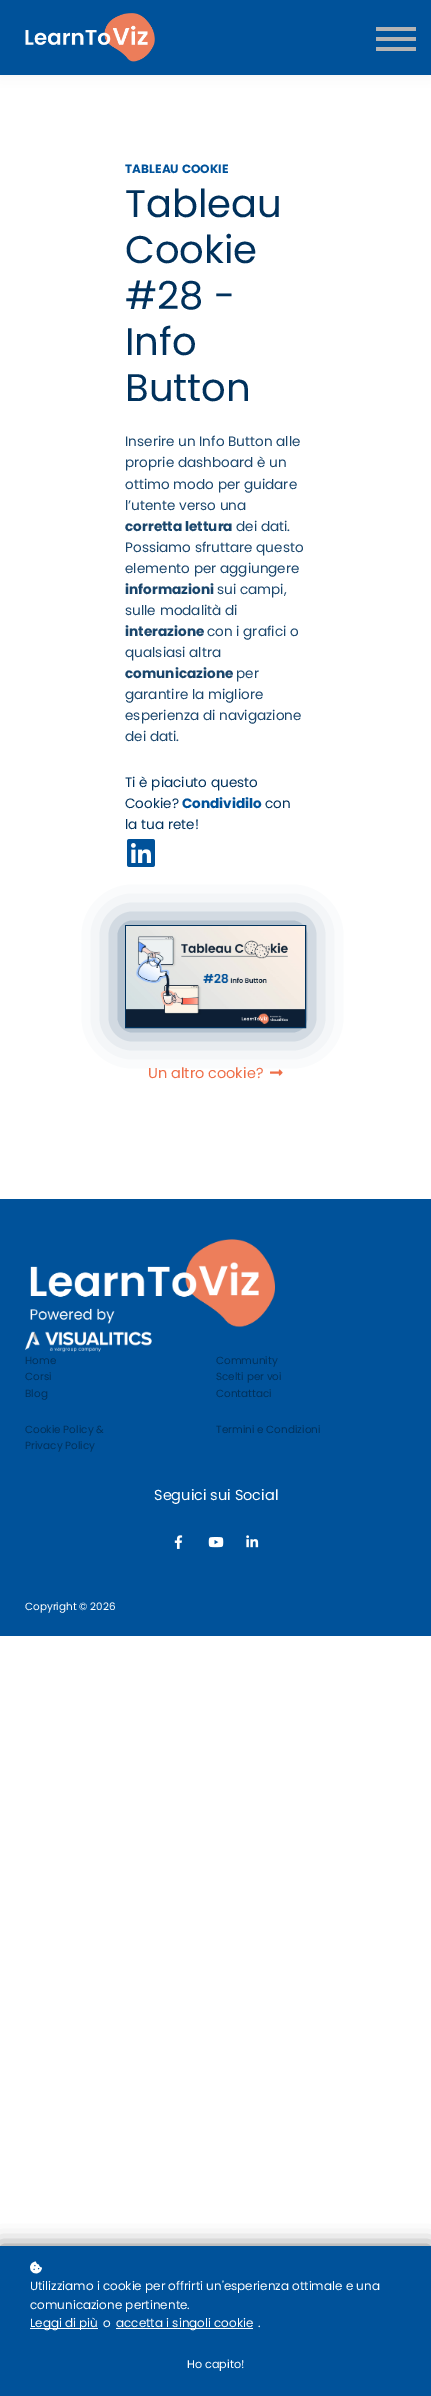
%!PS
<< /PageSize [431 2396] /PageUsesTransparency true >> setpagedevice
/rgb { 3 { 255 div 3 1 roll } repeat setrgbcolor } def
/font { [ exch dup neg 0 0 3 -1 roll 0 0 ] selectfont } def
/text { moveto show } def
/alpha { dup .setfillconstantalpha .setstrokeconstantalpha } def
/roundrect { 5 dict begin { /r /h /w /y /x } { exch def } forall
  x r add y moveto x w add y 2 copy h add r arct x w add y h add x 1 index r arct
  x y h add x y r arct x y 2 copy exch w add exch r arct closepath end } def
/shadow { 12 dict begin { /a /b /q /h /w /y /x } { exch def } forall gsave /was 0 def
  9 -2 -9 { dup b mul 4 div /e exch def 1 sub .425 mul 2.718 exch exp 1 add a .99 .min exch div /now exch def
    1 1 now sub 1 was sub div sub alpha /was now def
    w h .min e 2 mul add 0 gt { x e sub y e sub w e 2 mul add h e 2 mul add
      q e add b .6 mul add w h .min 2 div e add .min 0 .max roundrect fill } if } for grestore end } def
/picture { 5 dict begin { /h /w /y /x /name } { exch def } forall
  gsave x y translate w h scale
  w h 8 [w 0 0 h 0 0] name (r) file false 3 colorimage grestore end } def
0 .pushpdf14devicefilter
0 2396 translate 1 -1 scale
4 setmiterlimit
255 255 255 rgb
0 0 431 2396 rectfill
0 0 0 rgb
0 0 431 75 0 7.5 0.05 shadow
0 82 154 rgb
0 0 431 75 rectfill
(img_01.rgb) 25 13 130 49 picture
180 180 180 rgb
376 47 40 4 rectfill
376 27 40 4 rectfill
376 37 40 4 rectfill
(img_02.rgb) 127 839 28 28 picture
0 50 93 rgb
122 925 181 103 0 18 0.6 shadow
0 49 92 rgb
125.5 925.5 180 102 rectstroke
(img_03.rgb) 126 926 179 101 picture
(img_04.rgb) 270 1069 13 7 picture
0 82 154 rgb
0 1199 431 437 rectfill
(img_05.rgb) 25 1239 250 114 picture
(img_06.rgb) 174 1535 9 14 picture
(img_07.rgb) 208 1537 16 11 picture
(img_08.rgb) 246 1535 13 13 picture
0 0 0 rgb
0 2246 431 150 0 10 0.5 shadow
0 82 154 rgb
0 2246 431 150 rectfill
(img_09.rgb) 30 2261 12 13 picture
255 255 255 rgb
30 2328 68 1 rectfill
116 2328 137 1 rectfill
/Poppins-Bold 12 font
0 82 154 rgb
125 173 moveto 0.1 0 (TABLEAU COOKIE) ashow
/Poppins-Regular 38.5 font
0 49 92 rgb
(Tableau) 125 217 text
(Cookie) 125 263 text
(#28 -) 125 309 text
(Info) 125 355 text
(Button) 125 401 text
/Poppins-Regular 13.6 font
26 70 108 rgb
(Inserire un Info Button alle) 125 446 text
(proprie dashboard è un) 125 467 text
(ottimo modo per guidare) 125 489 text
(l’utente verso una) 125 510 text
/Poppins-Bold 13.6 font
(corretta lettura) 125 531 text
/Poppins-Regular 13.6 font
(dei dati.) 236 531 text
(Possiamo sfruttare questo) 125 552 text
(elemento per aggiungere) 125 573 text
/Poppins-Bold 13.6 font
(informazioni) 125 594 text
/Poppins-Regular 13.6 font
(sui campi,) 217 594 text
(sulle modalità di) 125 615 text
/Poppins-Bold 13.6 font
(interazione) 125 636 text
/Poppins-Regular 13.6 font
(con i grafici o) 207 636 text
(qualsiasi altra) 125 657 text
/Poppins-Bold 13.6 font
(comunicazione) 125 678 text
/Poppins-Regular 13.6 font
(per) 236 678 text
(garantire la migliore) 125 699 text
(esperienza di navigazione) 125 720 text
(dei dati.) 125 741 text
0 49 92 rgb
(Ti è piaciuto questo) 125 787 text
(Cookie?) 125 808 text
/Poppins-Bold 13.6 font
0 82 154 rgb
(Condividilo) 182 808 text
/Poppins-Regular 13.6 font
0 49 92 rgb
(con) 265 808 text
(la tua rete!) 125 829 text
/Poppins-Regular 14.5 font
238 111 73 rgb
(Un altro cookie?) 148 1078 text
/Poppins-Regular 10.4 font
0 49 92 rgb
(Home) 25 1364 text
(Community) 216 1364 text
(Corsi) 25 1380 text
(Scelti per voi) 216 1380 text
(Blog) 25 1397 text
(Contattaci) 216 1397 text
(Cookie Policy &) 25 1433 text
(Privacy Policy) 25 1449 text
(Termini e Condizioni) 216 1433 text
/Poppins-Regular 14.5 font
255 255 255 rgb
(Seguici sui Social) 154 1500 text
/Poppins-Regular 10.4 font
(Copyright © 2026) 25 1610 text
/Poppins-Regular 12 font
(Utilizziamo i cookie per offrirti un'esperienza ottimale e una) 30 2290 text
(comunicazione pertinente.) 30 2309 text
(Leggi di più) 30 2327 text
(o) 103 2327 text
(accetta i singoli cookie) 116 2327 text
(.) 258 2327 text
/Poppins-Regular 11.25 font
(Ho capito!) 187 2368 text
.poppdf14devicefilter showpage
